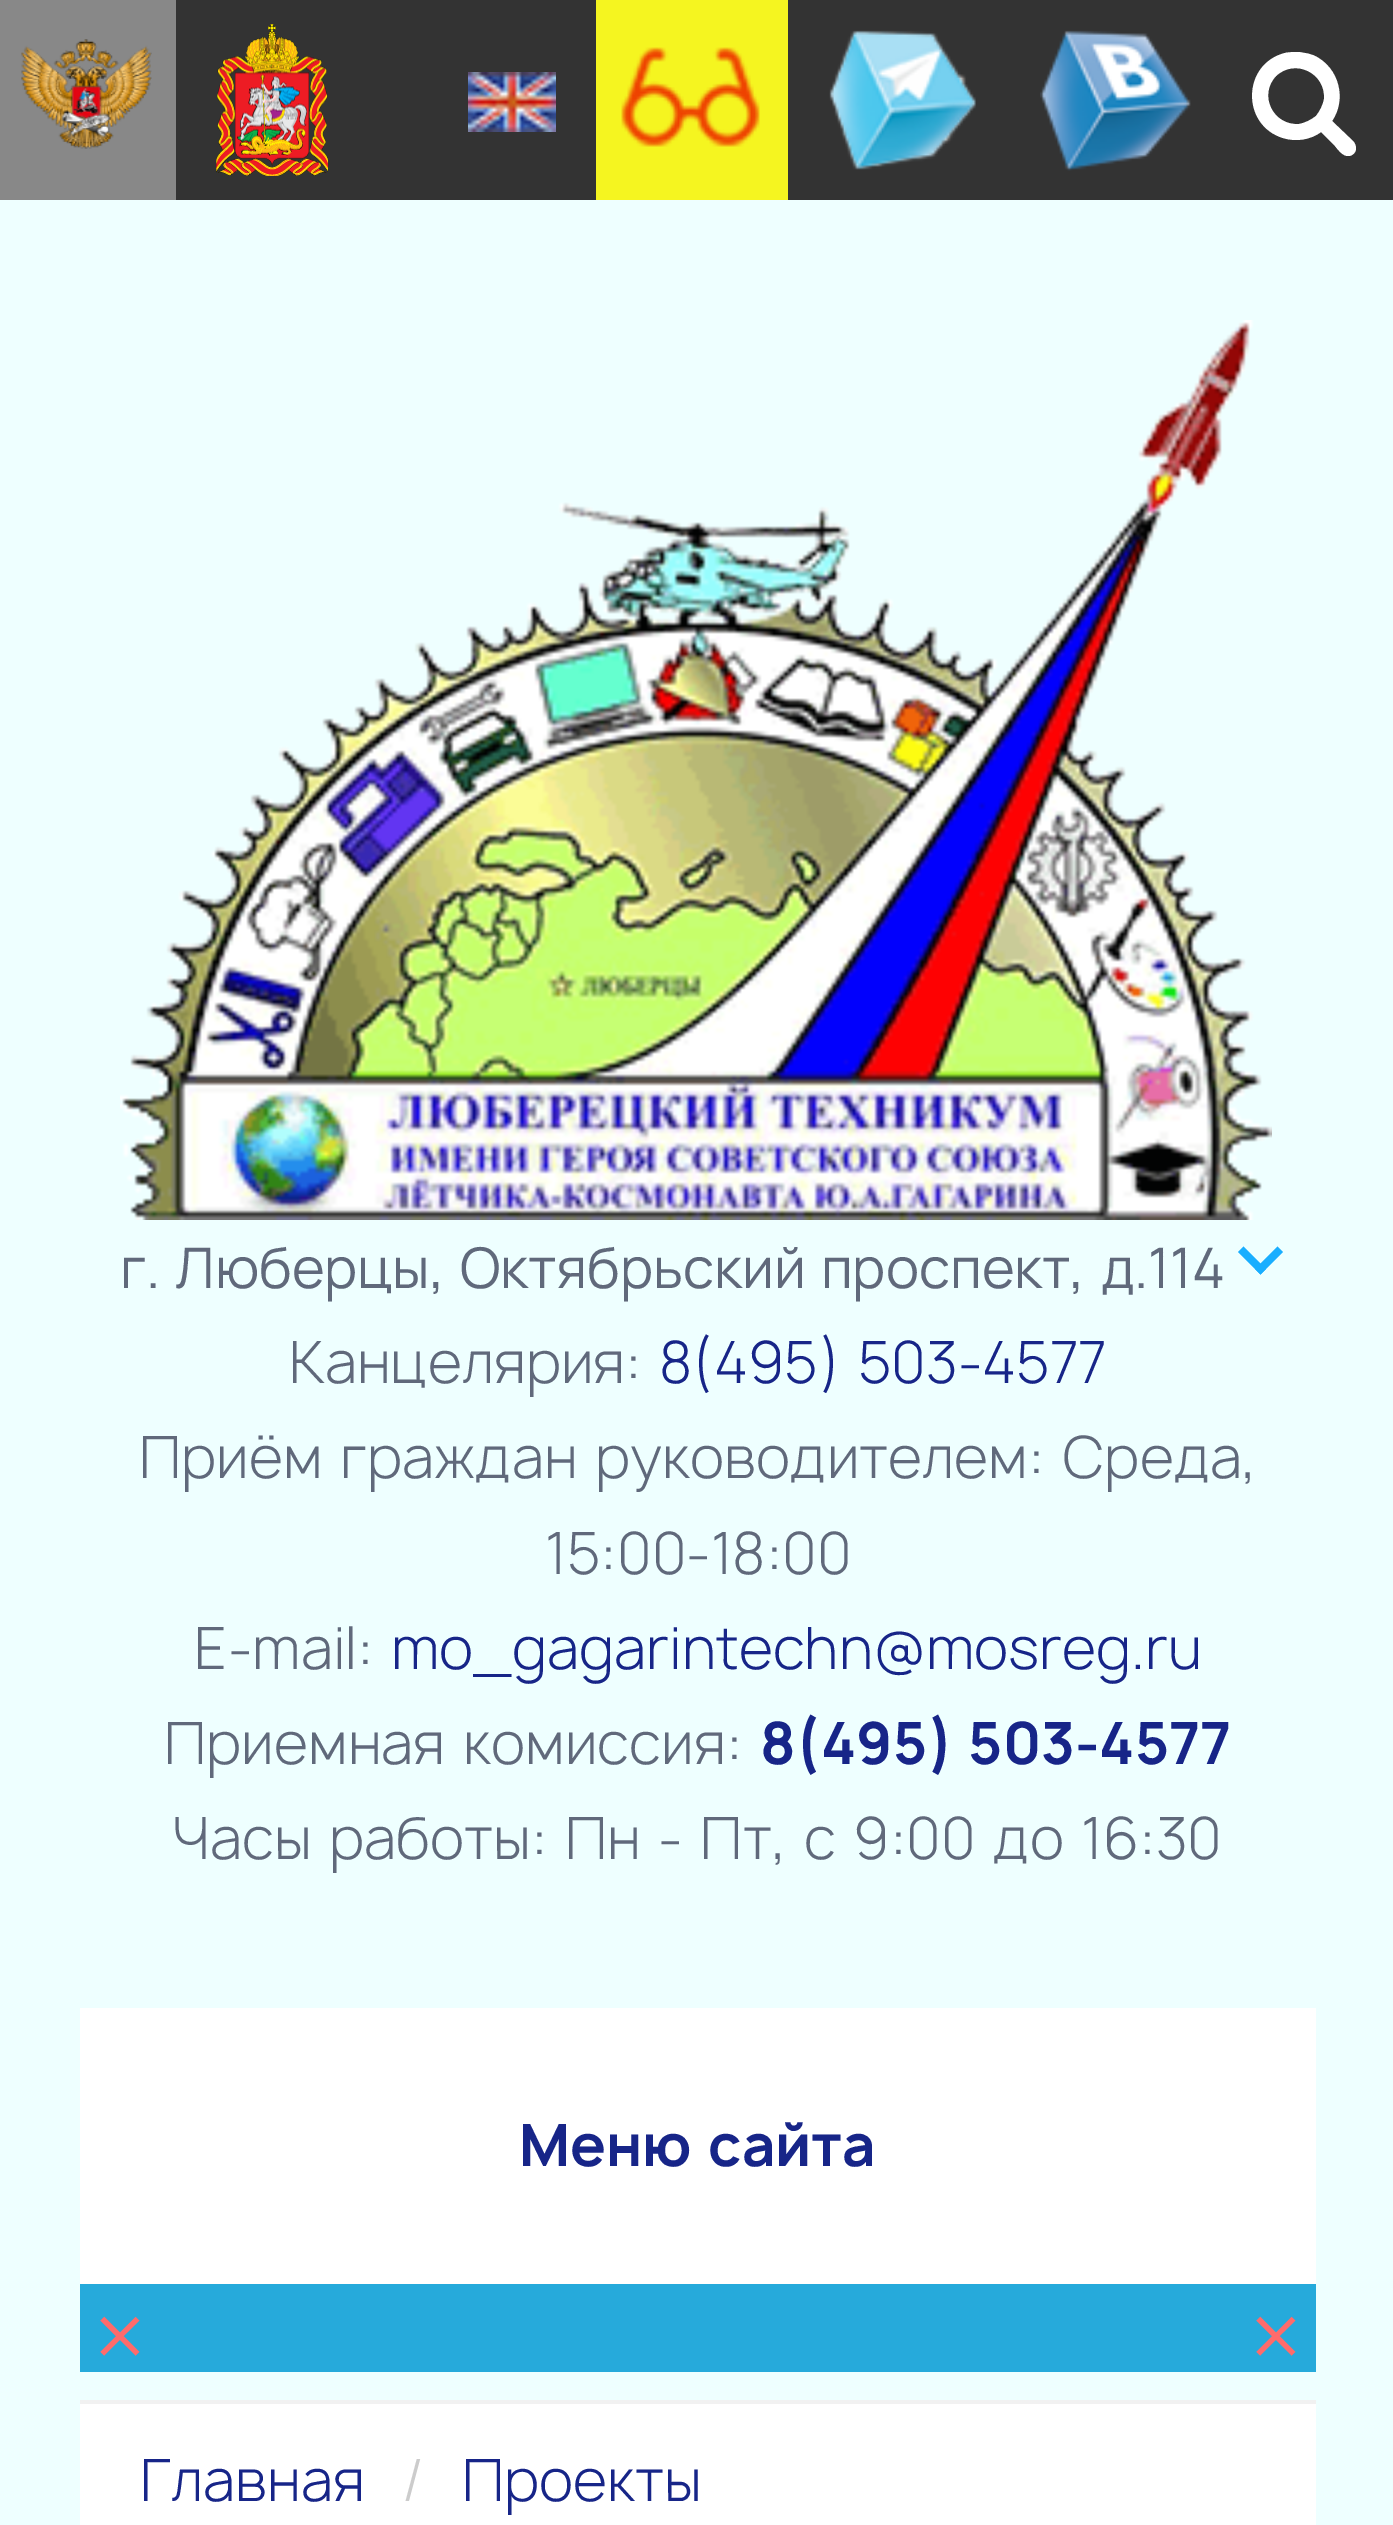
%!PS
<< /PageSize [1393 2525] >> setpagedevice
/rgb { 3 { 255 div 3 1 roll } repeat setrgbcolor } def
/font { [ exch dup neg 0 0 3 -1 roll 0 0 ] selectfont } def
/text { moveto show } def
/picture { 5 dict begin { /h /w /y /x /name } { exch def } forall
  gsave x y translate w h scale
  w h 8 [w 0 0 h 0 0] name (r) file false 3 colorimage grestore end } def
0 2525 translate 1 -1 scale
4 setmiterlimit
238 255 255 rgb
0 0 1393 2525 rectfill
51 51 51 rgb
176 0 1217 200 rectfill
136 136 136 rgb
0 0 176 200 rectfill
(img_01.rgb) 21 39 131 110 picture
(img_02.rgb) 216 24 112 152 picture
(img_03.rgb) 468 72 88 60 picture
245 245 32 rgb
596 0 192 200 rectfill
(img_04.rgb) 621 47 139 100 picture
(img_05.rgb) 829 30 147 140 picture
(img_06.rgb) 1040 30 151 141 picture
255 255 255 rgb
1316 116 moveto 4 -5 7 -11 8 -17 rcurveto 2 -26 -29 -41 -48 -23 rcurveto -18 19 -3 50 23 48 rcurveto 6 -1 12 -4 17 -8 rcurveto closepath 1356 148 moveto 0 3 -1 5 -4 7 rcurveto -7 4 -13 -4 -17 -9 rcurveto -14 -14 rlineto -11 8 -25 10 -38 6 rcurveto -42 -13 -41 -74 2 -85 rcurveto 10 -2 21 -1 30 3 rcurveto 24 12 32 43 17 65 rcurveto 22 21 rlineto 1 2 2 4 2 6 rcurveto closepath fill
(img_07.rgb) 120 320 1152 900 picture
25 174 255 rgb
1277.5 1246.5 moveto 5.5 5.5 rlineto -22.5 22.5 rlineto -5.5 -5.5 rlineto closepath fill
1243.5 1246.5 moveto 22.5 22.5 rlineto -5.5 5.5 rlineto -22.5 -22.5 rlineto closepath fill
255 255 255 rgb
80 2008 1236 276 rectfill
38 170 219 rgb
80 2284 1236 88 rectfill
255 255 255 rgb
80 2404 1236 121 rectfill
241 241 241 rgb
80 2400 1236 4 rectfill
/Manrope-Regular 56 font
96 105 123 rgb
120 1288 moveto 4 0 32 (г. Люберцы, Октябрьский проспект, д.114) widthshow
/Manrope-Light 56 font
(Канцелярия:) 289 1383 text
23 37 136 rgb
659 1383 moveto 4 0 32 (8\(495\) 503-4577) widthshow
96 105 123 rgb
139 1478 moveto 4 0 32 (Приём граждан руководителем: Среда,) widthshow
(15:00-18:00) 545 1574 text
(E-mail:) 194 1669 text
23 37 136 rgb
(mo_gagarintechn@mosreg.ru) 391 1669 text
96 105 123 rgb
164 1764 moveto 4 0 32 (Приемная комиссия:) widthshow
/Manrope-Bold 56 font
23 37 136 rgb
760 1764 moveto 4 0 32 (8\(495\) 503-4577) widthshow
/Manrope-Light 56 font
96 105 123 rgb
173 1859 moveto 4 0 32 (Часы работы: Пн - Пт, с 9:00 до 16:30) widthshow
/Manrope-Bold 56 font
23 37 136 rgb
519 2166 moveto 4 0 32 (Меню сайта) widthshow
/Manrope-Light 100 font
255 107 107 rgb
(×) 94 2366 text
(×) 1250 2366 text
/Manrope-Light 56 font
23 37 136 rgb
(Главная) 140 2501 text
204 204 204 rgb
(/) 402 2501 text
23 37 136 rgb
(Проекты) 462 2501 text
showpage
